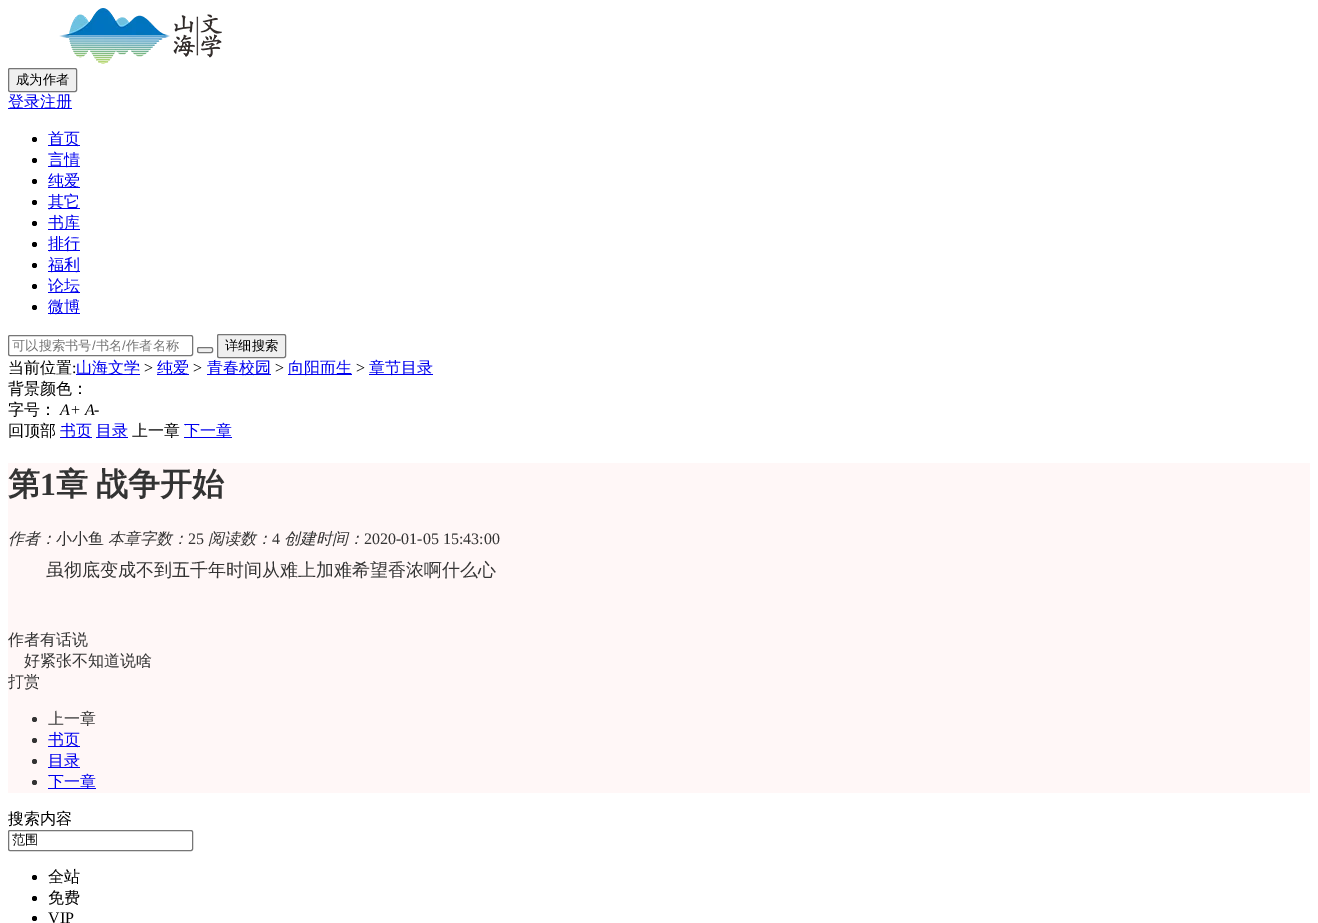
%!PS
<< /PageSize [1318 923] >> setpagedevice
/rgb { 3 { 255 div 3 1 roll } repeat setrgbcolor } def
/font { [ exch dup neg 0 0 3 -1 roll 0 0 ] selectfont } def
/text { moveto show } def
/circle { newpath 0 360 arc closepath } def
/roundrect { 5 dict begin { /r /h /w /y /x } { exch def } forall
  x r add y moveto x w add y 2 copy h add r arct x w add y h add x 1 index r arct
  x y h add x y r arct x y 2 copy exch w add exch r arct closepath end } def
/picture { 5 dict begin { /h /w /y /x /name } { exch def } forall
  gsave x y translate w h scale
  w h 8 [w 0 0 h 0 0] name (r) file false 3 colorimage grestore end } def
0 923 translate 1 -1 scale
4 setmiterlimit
255 255 255 rgb
0 0 1318 923 rectfill
(img_01.rgb) 59 8 163 56 picture
239 239 239 rgb
8.5 68.5 68 23 1.5 roundrect gsave fill grestore
118 118 118 rgb
stroke
0 0 238 rgb
8 108 64 1 rectfill
0 0 0 rgb
34.5 139.5 2.5 circle fill
0 0 238 rgb
48 145 32 1 rectfill
0 0 0 rgb
34.5 160.5 2.5 circle fill
0 0 238 rgb
48 166 32 1 rectfill
0 0 0 rgb
34.5 181.5 2.5 circle fill
0 0 238 rgb
48 187 32 1 rectfill
0 0 0 rgb
34.5 202.5 2.5 circle fill
0 0 238 rgb
48 208 32 1 rectfill
0 0 0 rgb
34.5 223.5 2.5 circle fill
0 0 238 rgb
48 229 32 1 rectfill
0 0 0 rgb
34.5 244.5 2.5 circle fill
0 0 238 rgb
48 250 32 1 rectfill
0 0 0 rgb
34.5 265.5 2.5 circle fill
0 0 238 rgb
48 271 32 1 rectfill
0 0 0 rgb
34.5 286.5 2.5 circle fill
0 0 238 rgb
48 292 32 1 rectfill
0 0 0 rgb
34.5 307.5 2.5 circle fill
0 0 238 rgb
48 313 32 1 rectfill
118 118 118 rgb
8.5 335.5 184 20 1.5 roundrect stroke
239 239 239 rgb
197.5 347.5 15 5 1.5 roundrect gsave fill grestore
118 118 118 rgb
stroke
239 239 239 rgb
217.5 334.5 68 23 1.5 roundrect gsave fill grestore
118 118 118 rgb
stroke
0 0 238 rgb
76 374 64 1 rectfill
157 374 32 1 rectfill
207 374 64 1 rectfill
288 374 64 1 rectfill
369 374 64 1 rectfill
60 437 32 1 rectfill
96 437 32 1 rectfill
184 437 48 1 rectfill
255 247 247 rgb
8 463 1302 330 rectfill
51 51 51 rgb
34.5 719.5 2.5 circle fill
34.5 740.5 2.5 circle fill
0 0 238 rgb
48 746 32 1 rectfill
51 51 51 rgb
34.5 761.5 2.5 circle fill
0 0 238 rgb
48 767 32 1 rectfill
51 51 51 rgb
34.5 782.5 2.5 circle fill
0 0 238 rgb
48 788 48 1 rectfill
118 118 118 rgb
8.5 830.5 184 20 1.5 roundrect stroke
0 0 0 rgb
34.5 877.5 2.5 circle fill
34.5 898.5 2.5 circle fill
34.5 918.5 2.5 circle fill
/WenQuanYiZenHei-Medium 13.25 font
(成为作者) 16 84 text
/WenQuanYiZenHei-Medium 16 font
0 0 238 rgb
(登录注册) 8 107 text
(首页) 48 144 text
(言情) 48 165 text
(纯爱) 48 186 text
(其它) 48 207 text
(书库) 48 228 text
(排行) 48 249 text
(福利) 48 270 text
(论坛) 48 291 text
(微博) 48 312 text
/WenQuanYiZenHei-Medium 13.25 font
117 117 117 rgb
(可以搜索书号) 12 350 text
/LiberationSans-Regular 13.25 font
(/) 92 350 text
/WenQuanYiZenHei-Medium 13.25 font
(书名) 96 350 text
/LiberationSans-Regular 13.25 font
(/) 122 350 text
/WenQuanYiZenHei-Medium 13.25 font
(作者名称) 126 350 text
0 0 0 rgb
(详细搜索) 225 350 text
/WenQuanYiZenHei-Medium 16 font
(当前位置) 8 373 text
/LiberationSerif-Regular 16 font
(:) 72 373 text
/WenQuanYiZenHei-Medium 16 font
0 0 238 rgb
(山海文学) 76 373 text
/LiberationSerif-Regular 16 font
0 0 0 rgb
(>) 144 373 text
/WenQuanYiZenHei-Medium 16 font
0 0 238 rgb
(纯爱) 157 373 text
/LiberationSerif-Regular 16 font
0 0 0 rgb
(>) 193 373 text
/WenQuanYiZenHei-Medium 16 font
0 0 238 rgb
(青春校园) 207 373 text
/LiberationSerif-Regular 16 font
0 0 0 rgb
(>) 275 373 text
/WenQuanYiZenHei-Medium 16 font
0 0 238 rgb
(向阳而生) 288 373 text
/LiberationSerif-Regular 16 font
0 0 0 rgb
(>) 356 373 text
/WenQuanYiZenHei-Medium 16 font
0 0 238 rgb
(章节目录) 369 373 text
0 0 0 rgb
(背景颜色：) 8 394 text
(字号：) 8 415 text
/LiberationSerif-Italic 16 font
(A+ A-) 60 415 text
/WenQuanYiZenHei-Medium 16 font
(回顶部) 8 436 text
0 0 238 rgb
(书页) 60 436 text
(目录) 96 436 text
0 0 0 rgb
(上一章) 132 436 text
0 0 238 rgb
(下一章) 184 436 text
/WenQuanYiZenHei-Bold 32 font
51 51 51 rgb
(第) 8 495 text
/LiberationSerif-Bold 32 font
(1) 40 495 text
/WenQuanYiZenHei-Bold 32 font
(章) 56 495 text
(战争开始) 96 495 text
/WenQuanYiZenHei-MediumItalic 16 font
(作者：) 8 544 text
/WenQuanYiZenHei-Medium 16 font
(小小鱼) 56 544 text
/WenQuanYiZenHei-MediumItalic 16 font
(本章字数：) 108 544 text
/LiberationSerif-Regular 16 font
(25) 188 544 text
/WenQuanYiZenHei-MediumItalic 16 font
(阅读数：) 208 544 text
/LiberationSerif-Regular 16 font
(4) 272 544 text
/WenQuanYiZenHei-MediumItalic 16 font
(创建时间：) 284 544 text
/LiberationSerif-Regular 16 font
(2020-01-05 15:43:00) 364 544 text
/WenQuanYiZenHei-Medium 18 font
(虽彻底变成不到五千年时间从难上加难希望香浓啊什么心) 46 576 text
/WenQuanYiZenHei-Medium 16 font
(作者有话说) 8 645 text
(好紧张不知道说啥) 24 666 text
(打赏) 8 687 text
(上一章) 48 724 text
0 0 238 rgb
(书页) 48 745 text
(目录) 48 766 text
(下一章) 48 787 text
0 0 0 rgb
(搜索内容) 8 824 text
/WenQuanYiZenHei-Medium 13.25 font
(范围) 12 844 text
/WenQuanYiZenHei-Medium 16 font
(全站) 48 882 text
(免费) 48 903 text
/LiberationSerif-Regular 16 font
(VIP) 48 923 text
showpage
